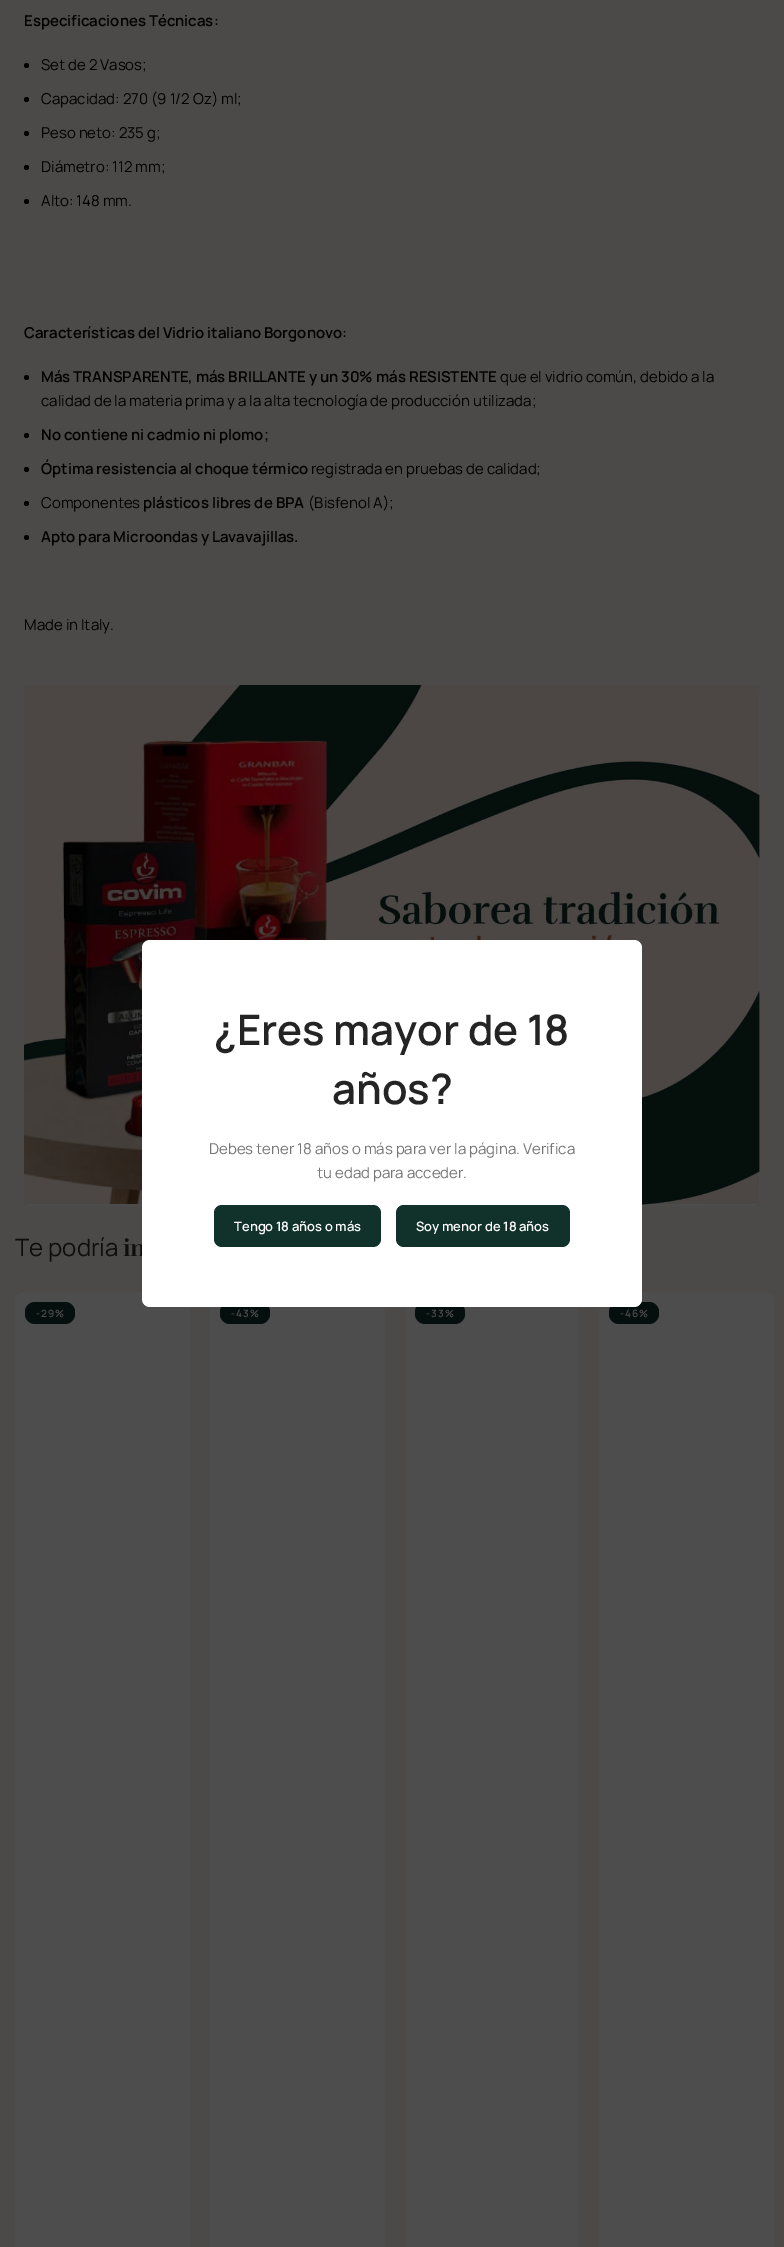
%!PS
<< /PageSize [784 2247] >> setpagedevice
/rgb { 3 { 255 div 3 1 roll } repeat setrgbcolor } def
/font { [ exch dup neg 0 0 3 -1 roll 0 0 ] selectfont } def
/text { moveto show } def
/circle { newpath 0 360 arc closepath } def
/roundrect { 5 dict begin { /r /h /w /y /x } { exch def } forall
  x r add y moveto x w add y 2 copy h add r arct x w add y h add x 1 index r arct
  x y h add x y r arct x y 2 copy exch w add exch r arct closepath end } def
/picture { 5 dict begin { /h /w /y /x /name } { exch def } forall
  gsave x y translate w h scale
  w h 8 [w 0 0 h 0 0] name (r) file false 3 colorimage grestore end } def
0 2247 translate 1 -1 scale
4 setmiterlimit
76 74 73 rgb
0 0 784 2247 rectfill
0 0 0 rgb
26.5 65.5 2.5 circle fill
26.5 99.5 2.5 circle fill
26.5 133.5 2.5 circle fill
26.5 167.5 2.5 circle fill
26.5 201.5 2.5 circle fill
26.5 377.5 2.5 circle fill
26.5 435.5 2.5 circle fill
26.5 469.5 2.5 circle fill
26.5 503.5 2.5 circle fill
26.5 537.5 2.5 circle fill
(img_01.rgb) 24 685 736 521 picture
77 77 77 rgb
15 1292 175 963 8 roundrect fill
5 15 13 rgb
25 1302 50 22 10 roundrect fill
77 77 77 rgb
210 1307 175 940 rectfill
5 15 13 rgb
220 1302 50 22 10 roundrect fill
77 77 77 rgb
405 1307 174 940 rectfill
5 15 13 rgb
415 1302 50 22 10 roundrect fill
77 77 77 rgb
599 1292 175 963 8 roundrect fill
5 15 13 rgb
609 1302 50 22 10 roundrect fill
/Manrope-SemiBold 15 font
0 0 0 rgb
(Especificaciones Técnicas:) 24 26 text
/Manrope-Regular 15 font
(Set de 2 Vasos;) 41 70 text
(Capacidad: 270 \(9 1/2 Oz\) ml;) 41 104 text
(Peso neto: 235 g;) 41 138 text
(Diámetro: 112 mm;) 41 172 text
(Alto: 148 mm.) 41 206 text
/Manrope-SemiBold 15 font
(Características del Vidrio italiano Borgonovo:) 24 338 text
(Más TRANSPARENTE, más BRILLANTE y un 30% más RESISTENTE) 41 382 text
/Manrope-Regular 15 font
(que el vidrio común, debido a la) 500 382 text
(calidad de la materia prima y a la alta tecnología de producción utilizada;) 41 406 text
/Manrope-SemiBold 15 font
(No contiene ni cadmio ni plomo;) 41 440 text
(Óptima resistencia al choque térmico) 41 474 text
/Manrope-Regular 15 font
(registrada en pruebas de calidad;) 311 474 text
(Componentes) 41 508 text
/Manrope-SemiBold 15 font
(plásticos libres de BPA) 143 508 text
/Manrope-Regular 15 font
(\(Bisfenol A\);) 308 508 text
/Manrope-SemiBold 15 font
(Apto para Microondas y Lavavajillas.) 41 542 text
/Manrope-Regular 15 font
(Made in Italy.) 24 630 text
/Manrope-Regular 24 font
15 14 14 rgb
(Te podría) 15 1256 text
/Rufina-Bold 24 font
(in) 123 1256 text
/Manrope-SemiBold 10 font
77 77 77 rgb
36 1317 moveto 1 0 (-29%) ashow
231 1317 moveto 1 0 (-43%) ashow
426 1317 moveto 1 0 (-33%) ashow
620 1317 moveto 1 0 (-46%) ashow
255 255 255 rgb
142 940 500 367 8 roundrect fill
/Manrope-SemiBold 42 font
36 36 36 rgb
(¿Eres mayor de 18) 214 1045 text
(años?) 332 1104 text
/Manrope-Regular 15 font
118 118 118 rgb
(Debes tener 18 años o más para ver la página. Verifica) 209 1154 text
(tu edad para acceder.) 317 1178 text
17 49 43 rgb
214 1205 167 42 8 roundrect fill
/Manrope-SemiBold 13 font
255 255 255 rgb
(Tengo 18 años o más) 234 1231 text
17 49 43 rgb
396 1205 174 42 8 roundrect fill
255 255 255 rgb
(Soy menor de 18 años) 416 1231 text
showpage
